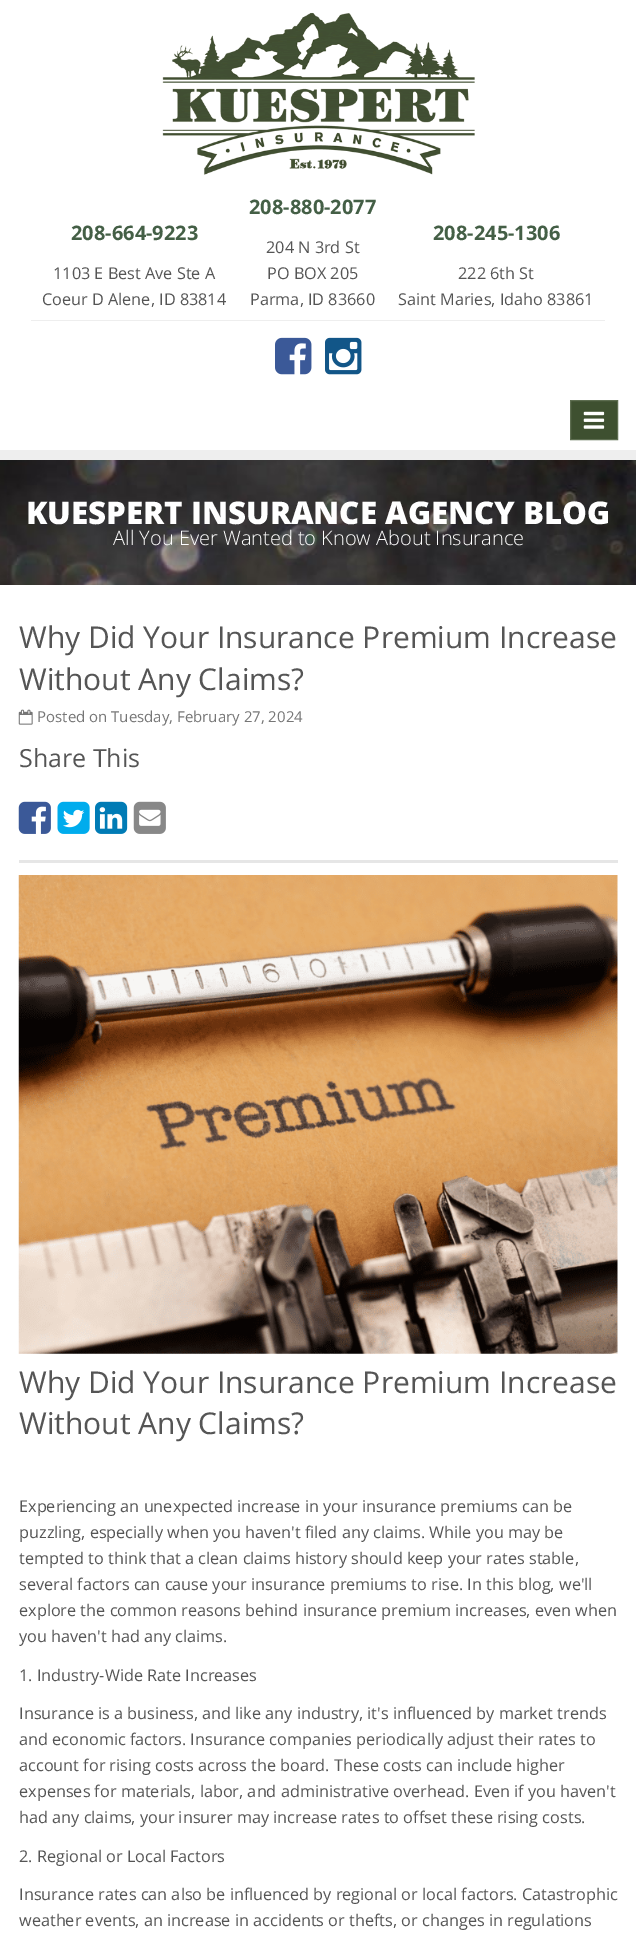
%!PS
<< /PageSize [636 1936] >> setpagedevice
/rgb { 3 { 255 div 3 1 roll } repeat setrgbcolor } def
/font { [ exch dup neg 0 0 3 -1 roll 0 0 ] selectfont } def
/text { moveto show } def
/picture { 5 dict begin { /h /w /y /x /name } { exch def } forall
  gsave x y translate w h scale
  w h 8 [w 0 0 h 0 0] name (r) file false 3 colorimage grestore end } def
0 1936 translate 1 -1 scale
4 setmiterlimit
255 255 255 rgb
0 0 636 1936 rectfill
238 238 238 rgb
0 450 636 10 rectfill
(img_01.rgb) 162 12 313 163 picture
31 320 574 1 rectfill
(img_02.rgb) 275 337 37 38 picture
(img_03.rgb) 325 337 37 38 picture
62 80 48 rgb
570.5 400.5 moveto 47 0 rlineto 0 39 rlineto -47 0 rlineto closepath gsave fill grestore
93 109 80 rgb
stroke
(img_04.rgb) 583 411 22 18 picture
(img_05.rgb) 0 460 636 125 picture
(img_06.rgb) 18 709 15 16 picture
(img_07.rgb) 18 801 33 33 picture
(img_08.rgb) 57 801 33 33 picture
(img_09.rgb) 95 801 33 33 picture
(img_10.rgb) 133 801 33 33 picture
230 230 230 rgb
19 860 599 3 rectfill
(img_11.rgb) 18 875 600 479 picture
/OpenSans-Bold 20 font
68 95 70 rgb
(208-664-9223) 71 240 text
/OpenSans-Regular 16.25 font
85 85 85 rgb
(1103 E Best Ave Ste A) 53 279 text
(Coeur D Alene, ID 83814) 42 305 text
/OpenSans-Bold 20 font
68 95 70 rgb
(208-880-2077) 249 214 text
/OpenSans-Regular 16.25 font
85 85 85 rgb
(204 N 3rd St) 266 253 text
(PO BOX 205) 267 279 text
(Parma, ID 83660) 250 305 text
/OpenSans-Bold 20 font
68 95 70 rgb
(208-245-1306) 433 240 text
/OpenSans-Regular 16.25 font
85 85 85 rgb
(222 6th St) 458 279 text
(Saint Maries, Idaho 83861) 398 305 text
/OpenSans-ExtraBold 31.25 font
255 255 255 rgb
(KUESPERT INSURANCE AGENCY BLOG) 26 524 text
/OpenSans-Light 20 font
(All You Ever Wanted to Know About Insurance) 113 545 text
/OpenSans-Regular 30 font
85 85 85 rgb
(Why Did Your Insurance Premium Increase) 19 648 text
(Without Any Claims?) 19 690 text
/OpenSans-Regular 15 font
118 118 118 rgb
(Posted on Tuesday, February 27, 2024) 37 722 text
/OpenSans-Regular 25 font
85 85 85 rgb
(Share This) 19 767 text
/OpenSans-Regular 30 font
(Why Did Your Insurance Premium Increase) 19 1393 text
(Without Any Claims?) 19 1434 text
/OpenSans-Regular 16.25 font
(Experiencing an unexpected increase in your insurance premiums can be) 19 1512 text
(puzzling, especially when you haven't filed any claims. While you may be) 19 1538 text
(tempted to think that a clean claims history should keep your rates stable,) 19 1564 text
(several factors can cause your insurance premiums to rise. In this blog, we'll) 19 1590 text
(explore the common reasons behind insurance premium increases, even when) 19 1616 text
(you haven't had any claims.) 19 1642 text
(1. Industry-Wide Rate Increases) 19 1681 text
(Insurance is a business, and like any industry, it's influenced by market trends) 19 1719 text
(and economic factors. Insurance companies periodically adjust their rates to) 19 1745 text
(account for rising costs across the board. These costs can include higher) 19 1771 text
(expenses for materials, labor, and administrative overhead. Even if you haven't) 19 1797 text
(had any claims, your insurer may increase rates to offset these rising costs.) 19 1823 text
(2. Regional or Local Factors) 19 1862 text
(Insurance rates can also be influenced by regional or local factors. Catastrophic) 19 1900 text
(weather events, an increase in accidents or thefts, or changes in regulations) 19 1926 text
showpage
